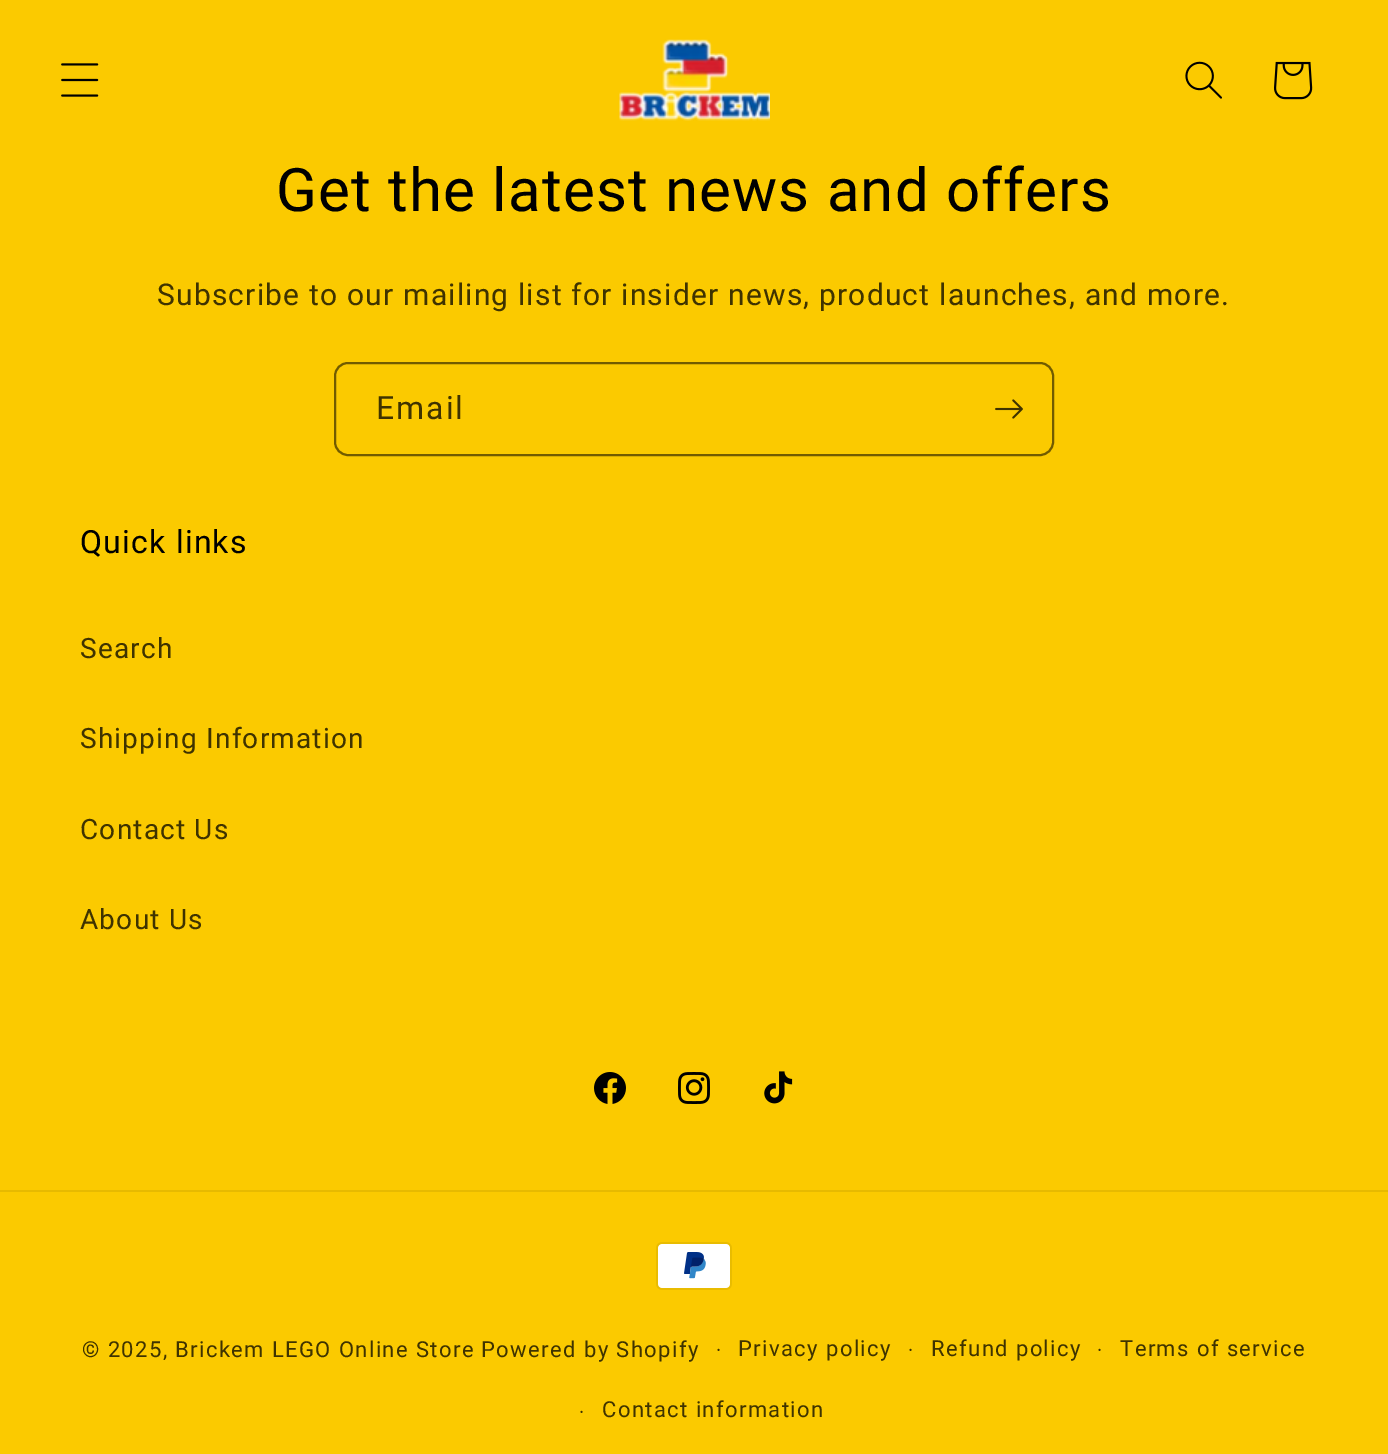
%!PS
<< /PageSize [1388 1454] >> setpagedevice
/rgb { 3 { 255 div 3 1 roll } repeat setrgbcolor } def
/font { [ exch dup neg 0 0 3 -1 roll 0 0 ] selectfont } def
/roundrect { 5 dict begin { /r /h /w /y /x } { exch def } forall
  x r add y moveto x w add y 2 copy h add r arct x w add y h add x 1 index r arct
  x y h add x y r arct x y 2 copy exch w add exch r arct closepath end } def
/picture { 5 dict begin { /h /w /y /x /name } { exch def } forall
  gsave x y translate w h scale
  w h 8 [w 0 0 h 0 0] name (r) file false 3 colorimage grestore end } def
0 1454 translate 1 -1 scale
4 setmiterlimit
251 202 0 rgb
0 0 1388 1454 rectfill
(img_01.rgb) 61 63 38 34 picture
(img_02.rgb) 619 39 151 82 picture
(img_03.rgb) 1185 61 37 38 picture
(img_04.rgb) 1274 61 39 39 picture
113 91 0 rgb
2 setlinewidth
335 363 718 92 13 roundrect stroke
(img_05.rgb) 995 399 28 20 picture
(img_06.rgb) 594 1072 32 32 picture
(img_07.rgb) 678 1072 32 32 picture
(img_08.rgb) 764 1071 29 33 picture
231 186 0 rgb
0 1190 1388 2 rectfill
(img_09.rgb) 656 1242 76 48 picture
/Roboto-Regular 60 font
0 0 0 rgb
276 211 moveto 1.2 0 (Get the latest news and offers) ashow
/Roboto-Regular 30 font
63 51 0 rgb
157 305 moveto 1.2 0 (Subscribe to our mailing list for insider news, product launches, and more.) ashow
/Roboto-Regular 32 font
376 419 moveto 2 0 (Email) ashow
0 0 0 rgb
80 553 moveto 1.2 0 (Quick links) ashow
/Roboto-Regular 28 font
63 51 0 rgb
80 658 moveto 1.2 0 (Search) ashow
80 748 moveto 1.2 0 (Shipping Information) ashow
80 839 moveto 1.2 0 (Contact Us) ashow
80 929 moveto 1.2 0 (About Us) ashow
/Roboto-Regular 22 font
82 1357 moveto 1.4 0 (© 2025, Brickem LEGO Online Store) ashow
/Roboto-Regular 20 font
716 1357 moveto 1.4 0 (·) ashow
/Roboto-Regular 22 font
738 1356 moveto 1.4 0 (Privacy policy) ashow
/Roboto-Regular 20 font
908 1357 moveto 1.4 0 (·) ashow
/Roboto-Regular 22 font
931 1356 moveto 1.4 0 (Refund policy) ashow
/Roboto-Regular 20 font
1097 1357 moveto 1.4 0 (·) ashow
/Roboto-Regular 22 font
1120 1356 moveto 1.4 0 (Terms of service) ashow
/Roboto-Regular 20 font
579 1419 moveto 1.4 0 (·) ashow
/Roboto-Regular 22 font
602 1417 moveto 1.4 0 (Contact information) ashow
481 1357 moveto 1.4 0 (Powered by Shopify) ashow
showpage
